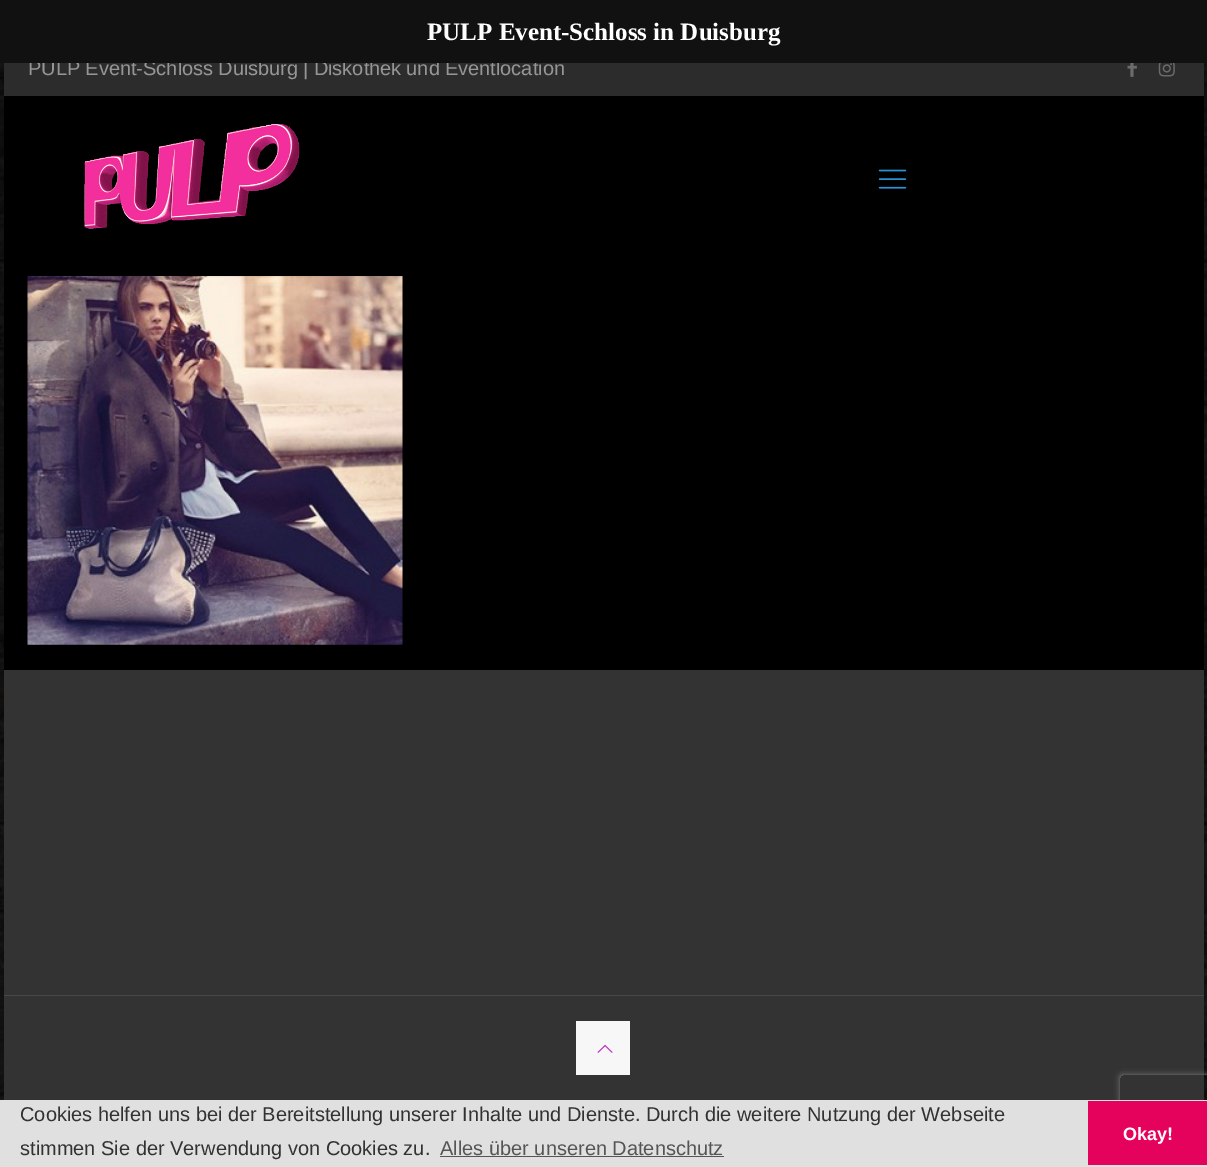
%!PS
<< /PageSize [1207 1167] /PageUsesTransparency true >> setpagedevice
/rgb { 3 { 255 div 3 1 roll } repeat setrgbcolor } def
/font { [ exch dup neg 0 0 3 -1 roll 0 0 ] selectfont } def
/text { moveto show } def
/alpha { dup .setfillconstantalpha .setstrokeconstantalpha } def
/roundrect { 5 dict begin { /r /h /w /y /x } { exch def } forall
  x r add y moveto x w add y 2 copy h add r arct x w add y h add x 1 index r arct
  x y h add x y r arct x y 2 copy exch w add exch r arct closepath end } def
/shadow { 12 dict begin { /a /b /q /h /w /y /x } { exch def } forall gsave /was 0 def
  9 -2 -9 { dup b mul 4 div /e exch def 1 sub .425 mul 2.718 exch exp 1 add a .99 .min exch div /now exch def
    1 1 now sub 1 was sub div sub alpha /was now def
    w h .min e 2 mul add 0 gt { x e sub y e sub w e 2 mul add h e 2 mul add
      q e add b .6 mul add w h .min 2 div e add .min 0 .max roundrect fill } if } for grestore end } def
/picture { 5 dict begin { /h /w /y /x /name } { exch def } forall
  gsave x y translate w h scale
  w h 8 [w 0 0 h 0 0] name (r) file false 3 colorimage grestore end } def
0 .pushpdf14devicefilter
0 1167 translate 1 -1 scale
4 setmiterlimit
255 255 255 rgb
0 0 1207 1167 rectfill
(img_01.rgb) 0 63 1207 1037 picture
0 0 0 rgb
4 96 1200 574 rectfill
44 44 44 rgb
4 63 1200 33 rectfill
(img_02.rgb) 1127 63 10 14 picture
(img_03.rgb) 1158 63 17 14 picture
(img_04.rgb) 84 124 216 105 picture
(img_05.rgb) 878 169 29 20 picture
(img_06.rgb) 27 276 376 369 picture
51 51 51 rgb
4 670 1200 430 rectfill
71 71 71 rgb
4 995 1200 1 rectfill
247 247 247 rgb
576 1021 54 54 rectfill
(img_07.rgb) 597 1044 16 9 picture
gsave
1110 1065 moveto 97 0 rlineto 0 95 rlineto -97 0 rlineto closepath 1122.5 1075 moveto 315 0 rlineto 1.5 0 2.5 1 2.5 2.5 rcurveto 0 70 rlineto 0 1.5 -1 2.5 -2.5 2.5 rcurveto -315 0 rlineto -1.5 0 -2.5 -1 -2.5 -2.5 rcurveto 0 -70 rlineto 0 -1.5 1 -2.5 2.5 -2.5 rcurveto closepath eoclip newpath
128 128 128 rgb
1120 1075 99 75 2.5 3 1 shadow
grestore
224 224 224 rgb
0 1100 1207 67 rectfill
86 85 85 rgb
440 1156 284 1 rectfill
229 2 93 rgb
1088 1101 119 64 rectfill
/LiberationSans-Regular 20 font
150 150 150 rgb
28 75 moveto -0.5 0 32 (PULP Event-Schloss Duisburg | Diskothek und Eventlocation) widthshow
17 17 17 rgb
0 0 1207 63 rectfill
/LiberationSerif-Bold 25 font
255 255 255 rgb
(PULP Event-Schloss in Duisburg) 427 40 text
/LiberationSans-Regular 20 font
51 50 50 rgb
(Cookies helfen uns bei der Bereitstellung unserer Inhalte und Dienste. Durch die weitere Nutzung der Webseite) 20 1121 text
(stimmen Sie der Verwendung von Cookies zu.) 20 1155 text
86 85 85 rgb
(Alles über unseren Datenschutz) 440 1155 text
/LiberationSans-Bold 18 font
255 255 255 rgb
(Okay!) 1123 1140 text
.poppdf14devicefilter showpage
